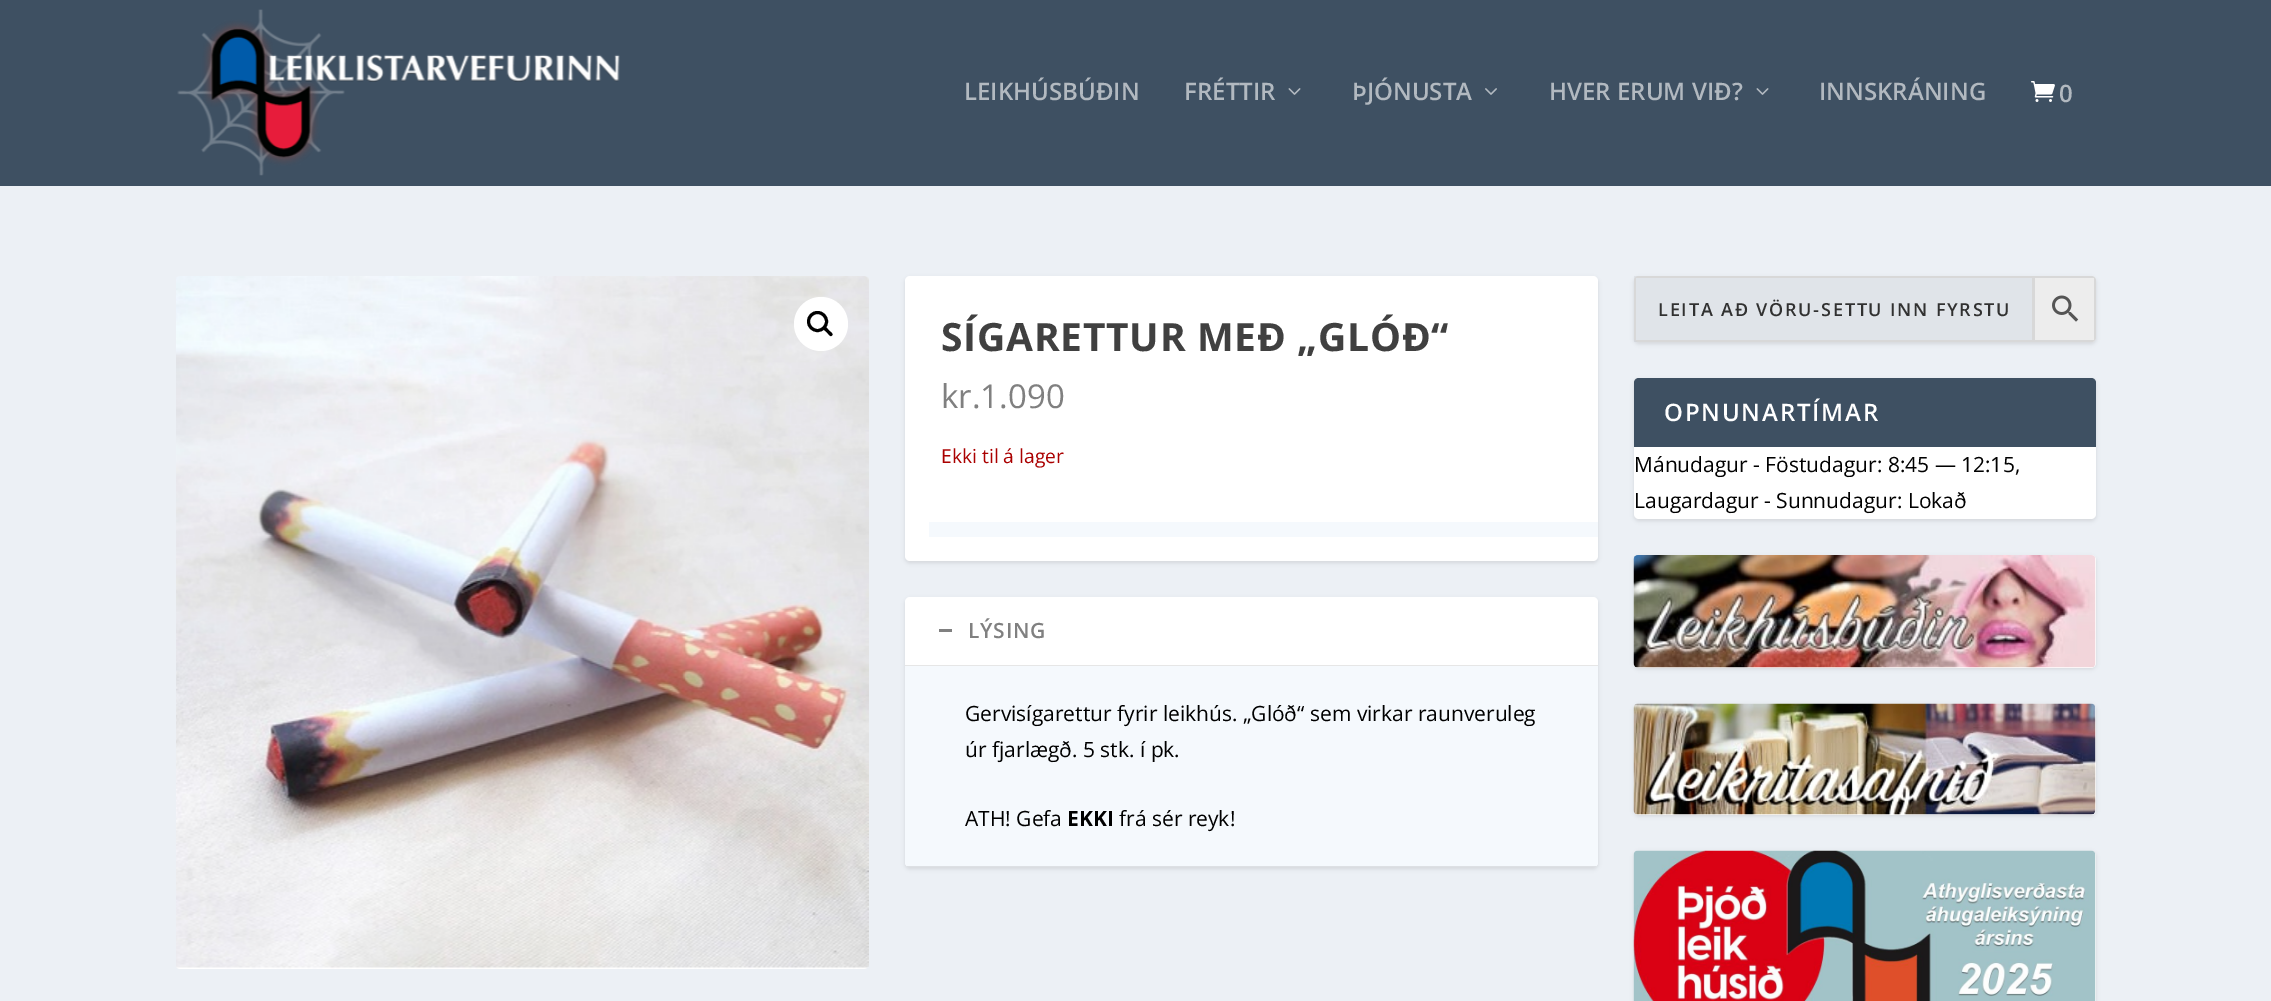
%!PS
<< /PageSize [2271 1001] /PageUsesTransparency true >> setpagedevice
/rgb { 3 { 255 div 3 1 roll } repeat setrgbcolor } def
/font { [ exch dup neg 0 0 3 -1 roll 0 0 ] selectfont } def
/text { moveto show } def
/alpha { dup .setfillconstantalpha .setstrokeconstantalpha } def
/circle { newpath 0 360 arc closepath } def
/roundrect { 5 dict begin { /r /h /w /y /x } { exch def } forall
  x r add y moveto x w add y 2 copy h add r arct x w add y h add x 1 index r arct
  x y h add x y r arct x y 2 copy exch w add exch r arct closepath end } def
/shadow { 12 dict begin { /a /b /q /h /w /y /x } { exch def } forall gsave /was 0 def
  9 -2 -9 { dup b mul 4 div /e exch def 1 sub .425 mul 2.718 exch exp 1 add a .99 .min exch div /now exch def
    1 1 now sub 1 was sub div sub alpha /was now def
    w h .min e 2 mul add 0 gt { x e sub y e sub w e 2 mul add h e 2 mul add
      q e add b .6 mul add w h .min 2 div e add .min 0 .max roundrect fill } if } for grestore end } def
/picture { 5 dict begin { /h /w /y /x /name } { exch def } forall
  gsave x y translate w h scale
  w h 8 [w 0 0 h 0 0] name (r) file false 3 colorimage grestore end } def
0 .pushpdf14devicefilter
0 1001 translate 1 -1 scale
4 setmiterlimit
236 240 245 rgb
0 0 2271 1001 rectfill
62 80 98 rgb
0 0 2271 186 rectfill
(img_01.rgb) 177 9 443 167 picture
(img_02.rgb) 1288 88 13 7 picture
(img_03.rgb) 1485 88 12 7 picture
(img_02.rgb) 1756 88 13 7 picture
(img_04.rgb) 2031 81 24 21 picture
(img_05.rgb) 176 276 693 693 picture
255 255 255 rgb
821 324 27 circle fill
0 0 0 rgb
3 setlinewidth
817.5 321.5 9 circle stroke
824 327 moveto 1.5 -1.5 4 2.5 5 3.5 rcurveto 1 1 5 3.5 3 5 rcurveto -1.5 2 -4 -2 -5 -3 rcurveto -1 -1 -5 -3.5 -3 -5.5 rcurveto closepath fill
905 278 693 285 5 2 0.1 shadow
255 255 255 rgb
905 276 693 285 5 roundrect fill
245 249 253 rgb
929 522 669 15 rectfill
0 0 0 rgb
905 599 693 270 5 2 0.1 shadow
255 255 255 rgb
905 597 693 270 5 roundrect fill
230 230 230 rgb
905 665 693 1 rectfill
128 128 128 rgb
939 629 13 3 rectfill
245 249 253 rgb
905 666 moveto 693 0 rlineto 0 196 rlineto 0 3 -2 5 -5 5 rcurveto -683 0 rlineto -3 0 -5 -2 -5 -5 rcurveto closepath fill
gsave
905 597 693 270 5 roundrect clip newpath
221 224 228 rgb
905 866 693 1 rectfill
grestore
gsave
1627 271 moveto 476 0 rlineto 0 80 rlineto -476 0 rlineto closepath 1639 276 moveto 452 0 rlineto 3 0 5 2 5 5 rcurveto 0 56 rlineto 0 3 -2 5 -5 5 rcurveto -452 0 rlineto -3 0 -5 -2 -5 -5 rcurveto 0 -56 rlineto 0 -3 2 -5 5 -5 rcurveto closepath eoclip newpath
0 0 0 rgb
1634 278 462 66 5 2 0.1 shadow
grestore
0.05 alpha
0 0 0 rgb
1634 276 398 66 rectfill
1 alpha
237 237 237 rgb
2033 276 moveto 58 0 rlineto 3 0 5 2 5 5 rcurveto 0 56 rlineto 0 3 -2 5 -5 5 rcurveto -58 0 rlineto closepath fill
216 216 216 rgb
2033 276 moveto 0 66 rlineto 58 0 rlineto 3 0 5 -2 5 -5 rcurveto 0 -56 rlineto 0 -3 -2 -5 -5 -5 rcurveto closepath 2035 278 moveto 0 62 rlineto 59 0 rlineto 0 -62 rlineto closepath eofill
1639 276 moveto -3 0 -5 2 -5 5 rcurveto 0 56 rlineto 0 3 2 5 5 5 rcurveto 395 0 rlineto 0 -66 rlineto closepath 1636 278 moveto 0 62 rlineto 396 0 rlineto 0 -62 rlineto closepath eofill
(img_06.rgb) 2052 295 27 27 picture
0 0 0 rgb
1634 380 462 141 5 2 0.1 shadow
255 255 255 rgb
1634 378 462 141 5 roundrect fill
62 80 98 rgb
1639 378 moveto 452 0 rlineto 3 0 5 2 5 5 rcurveto 0 64 rlineto -462 0 rlineto 0 -64 rlineto 0 -3 2 -5 5 -5 rcurveto closepath fill
0 0 0 rgb
1634 557 462 112 5 2 0.1 shadow
255 255 255 rgb
1634 555 462 113 5 roundrect fill
(img_07.rgb) 1633 555 463 113 picture
0 0 0 rgb
1634 705 462 111 5 2 0.1 shadow
255 255 255 rgb
1634 704 462 111 5 roundrect fill
(img_08.rgb) 1633 703 463 112 picture
0 0 0 rgb
1634 852 462 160 5 2 0.1 shadow
255 255 255 rgb
1634 851 462 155 5 roundrect fill
(img_09.rgb) 1633 850 463 151 picture
/OpenSans-SemiBold 24 font
178 185 192 rgb
(LEIKHÚSBÚÐIN) 964 100 text
(FRÉTTIR) 1184 100 text
(ÞJÓNUSTA) 1352 100 text
(HVER ERUM VIÐ?) 1549 100 text
(INNSKRÁNING) 1819 100 text
(0) 2059 102 text
/OpenSans-Bold 39 font
64 64 64 rgb
941 351 moveto 0.75 0 (SÍGARETTUR MEÐ „GLÓÐ“) ashow
/OpenSans-Regular 33 font
128 128 128 rgb
(kr.1.090) 941 408 text
/OpenSans-Regular 19.25 font
170 0 0 rgb
(Ekki til á lager) 941 463 text
/OpenSans-SemiBold 21 font
128 128 128 rgb
968 638 moveto 0.75 0 (LÝSING) ashow
/OpenSans-Regular 21 font
0 0 0 rgb
(Gervisígarettur fyrir leikhús. „Glóð“ sem virkar raunveruleg) 965 721 text
(úr fjarlægð. 5 stk. í pk.) 965 757 text
(ATH! Gefa) 965 826 text
/OpenSans-Bold 21 font
(EKKI) 1067 826 text
/OpenSans-Regular 21 font
(frá sér reyk!) 1119 826 text
/OpenSans-SemiBold 18 font
49 49 49 rgb
1658 316 moveto 1.8 0 (LEITA AÐ VÖRU-SETTU INN FYRSTU) ashow
/OpenSans-SemiBold 24 font
255 255 255 rgb
1664 421 moveto 1.8 0 (OPNUNARTÍMAR) ashow
/OpenSans-Regular 21 font
0 0 0 rgb
(Mánudagur - Föstudagur: 8:45 — 12:15,) 1634 472 text
(Laugardagur - Sunnudagur: Lokað) 1634 508 text
.poppdf14devicefilter showpage
